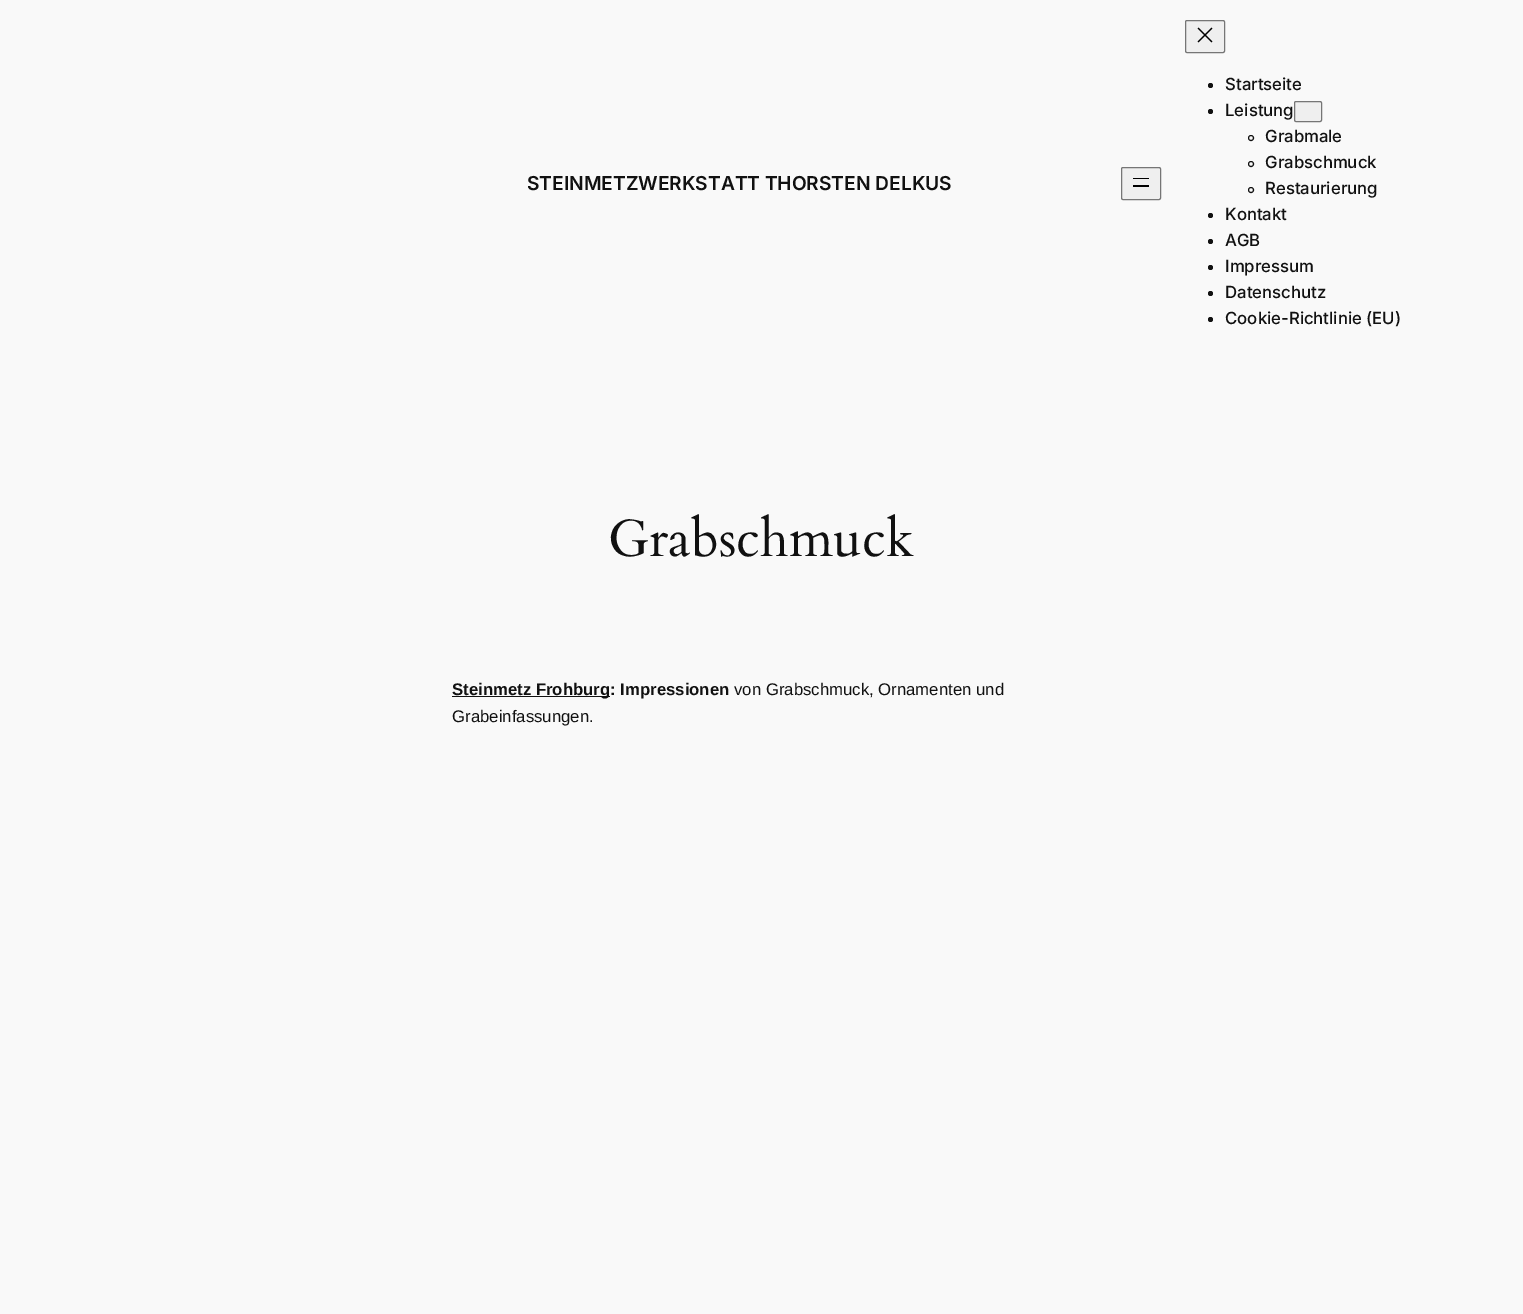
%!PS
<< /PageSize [1523 1314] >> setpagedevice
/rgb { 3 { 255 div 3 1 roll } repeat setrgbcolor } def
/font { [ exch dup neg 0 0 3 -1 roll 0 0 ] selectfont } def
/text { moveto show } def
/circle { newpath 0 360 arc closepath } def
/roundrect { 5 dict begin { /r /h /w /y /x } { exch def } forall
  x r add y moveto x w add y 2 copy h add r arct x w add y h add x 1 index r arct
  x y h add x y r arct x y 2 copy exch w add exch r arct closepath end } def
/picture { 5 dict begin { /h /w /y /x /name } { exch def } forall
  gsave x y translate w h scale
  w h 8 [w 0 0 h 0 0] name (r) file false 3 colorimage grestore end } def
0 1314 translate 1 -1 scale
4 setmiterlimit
249 249 249 rgb
0 0 1523 1314 rectfill
239 239 239 rgb
1121.5 167.5 39 32 1.5 roundrect gsave fill grestore
118 118 118 rgb
stroke
0 0 0 rgb
1133 178 16 1 rectfill
1133 185 16 2 rectfill
239 239 239 rgb
1185.5 20.5 39 32 1.5 roundrect gsave fill grestore
118 118 118 rgb
stroke
(img_01.rgb) 1197 27 16 16 picture
17 17 17 rgb
1210.5 85.5 2.5 circle fill
1210.5 111.5 2.5 circle fill
239 239 239 rgb
1294.5 101.5 27 20 1.5 roundrect gsave fill grestore
118 118 118 rgb
stroke
17 17 17 rgb
1251 138 2.5 circle stroke
1251 164 2.5 circle stroke
1251 190 2.5 circle stroke
1210.5 215.5 2.5 circle fill
1210.5 241.5 2.5 circle fill
1210.5 267.5 2.5 circle fill
1210.5 293.5 2.5 circle fill
1210.5 319.5 2.5 circle fill
452 696 158 1 rectfill
/Inter-SemiBold 19.2 font
(STEINMETZWERKSTATT THORSTEN DELKUS) 527 190 text
/Inter-Medium 16.75 font
(Startseite) 1225 90 text
(Leistung) 1225 116 text
(Grabmale) 1265 142 text
(Grabschmuck) 1265 168 text
(Restaurierung) 1265 194 text
(Kontakt) 1225 220 text
(AGB) 1225 246 text
(Impressum) 1225 272 text
(Datenschutz) 1225 298 text
(Cookie-Richtlinie \(EU\)) 1225 324 text
/Cardo-Regular 52.25 font
(Grabschmuck) 608 556 text
/LiberationSans-Bold 16.75 font
(Steinmetz Frohburg: Impressionen) 452 695 text
/LiberationSans-Regular 16.75 font
(von Grabschmuck, Ornamenten und) 734 695 text
(Grabeinfassungen.) 452 722 text
showpage
